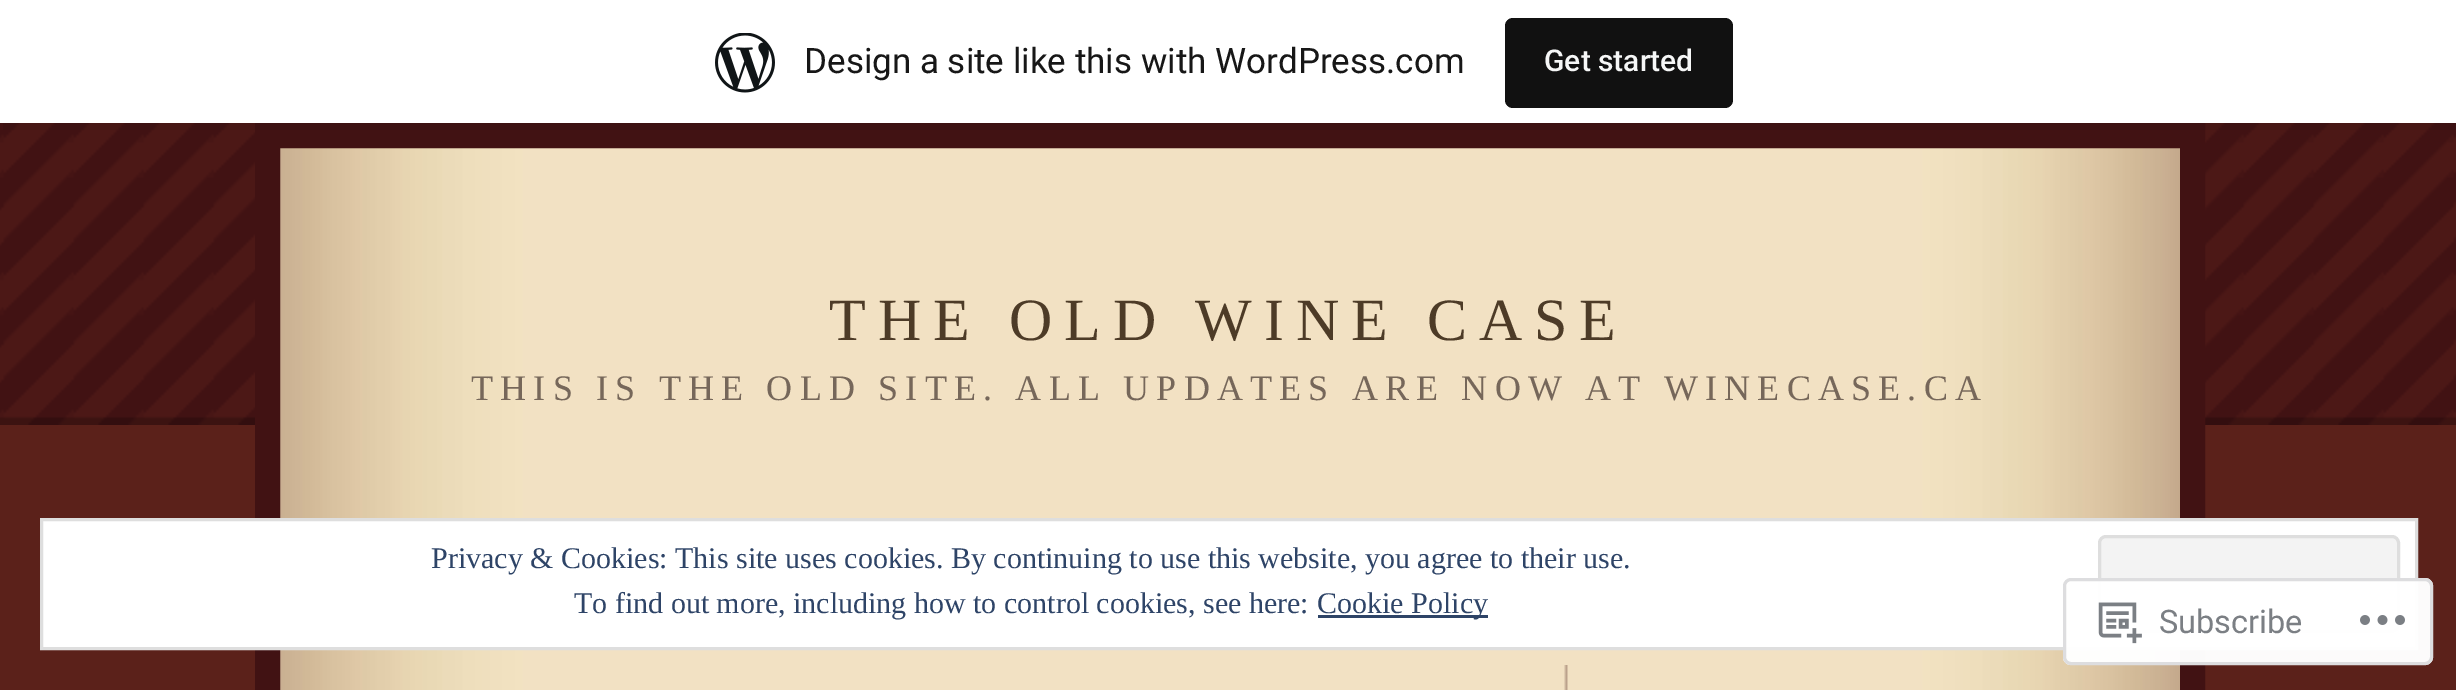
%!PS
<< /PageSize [2456 690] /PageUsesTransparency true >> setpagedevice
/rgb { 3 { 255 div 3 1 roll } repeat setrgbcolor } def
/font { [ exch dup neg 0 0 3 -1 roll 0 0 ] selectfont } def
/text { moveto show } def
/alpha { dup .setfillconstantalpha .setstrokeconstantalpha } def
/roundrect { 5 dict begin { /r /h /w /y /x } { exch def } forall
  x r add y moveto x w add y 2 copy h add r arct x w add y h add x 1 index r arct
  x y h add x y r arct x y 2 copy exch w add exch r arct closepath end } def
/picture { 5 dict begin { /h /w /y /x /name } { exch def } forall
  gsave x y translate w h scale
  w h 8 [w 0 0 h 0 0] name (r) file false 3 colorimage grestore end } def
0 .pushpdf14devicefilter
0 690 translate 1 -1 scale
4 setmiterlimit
91 33 26 rgb
0 0 2456 690 rectfill
(img_01.rgb) 0 123 2456 302 picture
(img_03.rgb) 280 148 1900 542 picture
65 18 19 rgb
25 setlinewidth
267.5 135.5 1925 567 rectstroke
0.08 alpha
0 0 0 rgb
3 122 moveto 0 8 rlineto 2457 0 rlineto 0 -122 rlineto -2 0 rlineto 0 114 rlineto closepath fill
1 alpha
255 255 255 rgb
0 0 2456 123 rectfill
(img_02.rgb) 715 33 60 60 picture
17 17 17 rgb
1505 18 228 90 8 roundrect fill
(img_04.rgb) 1564 665 4 25 picture
255 255 255 rgb
41.5 519.5 moveto 2375 0 rlineto 0 129 rlineto -2375 0 rlineto closepath gsave fill grestore
222 222 222 rgb
3 setlinewidth
stroke
243 243 243 rgb
2099.5 536.5 299 95 6.5 roundrect gsave fill grestore
222 222 222 rgb
stroke
46 68 103 rgb
1318 615 170 3 rectfill
0.98 alpha
255 255 255 rgb
2063 578 370 87 8 roundrect fill
220 220 222 rgb
2064.5 579.5 367 84 6.5 roundrect stroke
1 alpha
(img_05.rgb) 2098 602 44 42 picture
(img_06.rgb) 2360 615 45 10 picture
/Roboto-Regular 35 font
23 23 23 rgb
(Design a site like this with WordPress.com) 804 73 text
/Roboto-Medium 30 font
246 247 247 rgb
(Get started) 1544 71 text
/LiberationSerif-Regular 60 font
77 59 39 rgb
829 340 moveto 12 0 (THE OLD WINE CASE) ashow
/LiberationSerif-Regular 36 font
118 103 90 rgb
471 400 moveto 7.2 0 (THIS IS THE OLD SITE. ALL UPDATES ARE NOW AT WINECASE.CA) ashow
/LiberationSerif-Regular 30 font
46 68 103 rgb
(Privacy & Cookies: This site uses cookies. By continuing to use this website, you agree to their use.) 431 568 text
(To find out more, including how to control cookies, see here:) 574 613 text
(Cookie Policy) 1317 613 text
/Roboto-Regular 32.5 font
123 127 132 rgb
(Subscribe) 2159 633 text
.poppdf14devicefilter showpage
